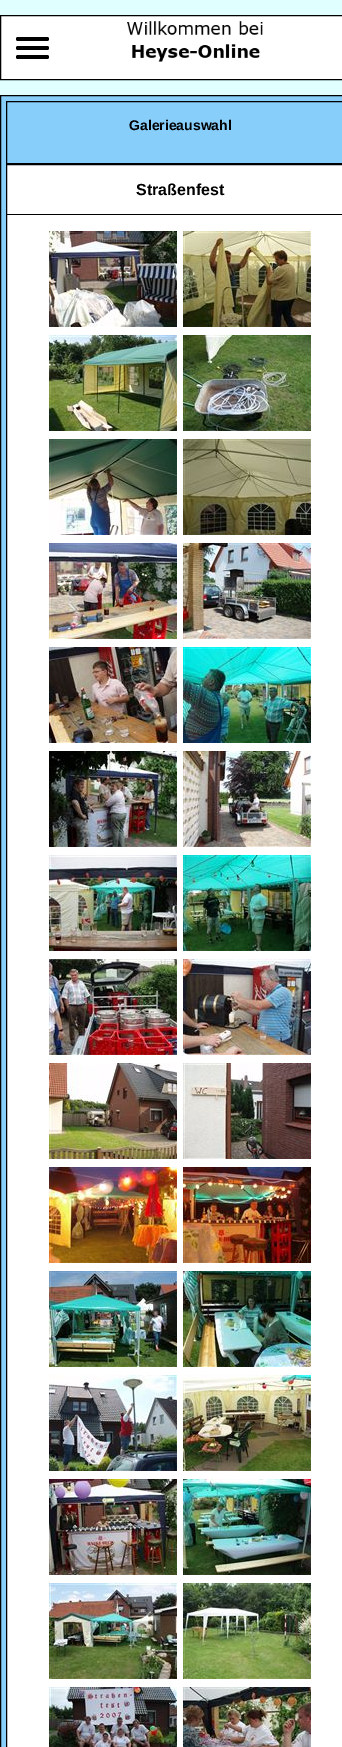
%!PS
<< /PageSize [342 1747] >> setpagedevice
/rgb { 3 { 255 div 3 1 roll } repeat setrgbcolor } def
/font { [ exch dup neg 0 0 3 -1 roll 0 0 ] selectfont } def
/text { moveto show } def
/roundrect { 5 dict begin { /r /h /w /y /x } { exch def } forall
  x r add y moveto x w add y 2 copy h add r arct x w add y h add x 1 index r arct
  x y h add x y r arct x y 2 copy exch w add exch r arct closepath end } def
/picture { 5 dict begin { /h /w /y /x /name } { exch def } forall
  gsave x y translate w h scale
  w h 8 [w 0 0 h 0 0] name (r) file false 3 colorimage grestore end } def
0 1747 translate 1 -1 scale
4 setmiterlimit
224 255 255 rgb
0 0 342 1747 rectfill
255 255 255 rgb
0.5 15.5 moveto 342 0 rlineto 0 64 rlineto -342 0 rlineto closepath gsave fill grestore
0 0 0 rgb
stroke
16 37 33 4 2 roundrect fill
16 46 33 4 2 roundrect fill
16 55 33 4 2 roundrect fill
(img_01.rgb) 127 21 136 41 picture
135 206 250 rgb
0.5 95.5 moveto 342 0 rlineto 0 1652 rlineto -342 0 rlineto closepath gsave fill grestore
0 0 0 rgb
stroke
6.5 101.5 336 62 rectstroke
255 255 255 rgb
6.5 164.5 moveto 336 0 rlineto 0 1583 rlineto -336 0 rlineto closepath gsave fill grestore
0 0 0 rgb
stroke
7 214 335 1 rectfill
(img_02.rgb) 49 231 128 96 picture
(img_03.rgb) 183 231 128 96 picture
(img_04.rgb) 49 335 128 96 picture
(img_05.rgb) 183 335 128 96 picture
(img_06.rgb) 49 439 128 96 picture
(img_07.rgb) 183 439 128 96 picture
(img_08.rgb) 49 543 128 96 picture
(img_09.rgb) 183 543 128 96 picture
(img_10.rgb) 49 647 128 96 picture
(img_11.rgb) 183 647 128 96 picture
(img_12.rgb) 49 751 128 96 picture
(img_13.rgb) 183 751 128 96 picture
(img_14.rgb) 49 855 128 96 picture
(img_15.rgb) 183 855 128 96 picture
(img_16.rgb) 49 959 128 96 picture
(img_17.rgb) 183 959 128 96 picture
(img_18.rgb) 49 1063 128 96 picture
(img_19.rgb) 183 1063 128 96 picture
(img_20.rgb) 49 1167 128 96 picture
(img_21.rgb) 183 1167 128 96 picture
(img_22.rgb) 49 1271 128 96 picture
(img_23.rgb) 183 1271 128 96 picture
(img_24.rgb) 49 1375 128 96 picture
(img_25.rgb) 183 1375 128 96 picture
(img_26.rgb) 49 1479 128 96 picture
(img_27.rgb) 183 1479 128 96 picture
(img_28.rgb) 49 1583 128 96 picture
(img_29.rgb) 183 1583 128 96 picture
(img_30.rgb) 49 1687 128 60 picture
(img_31.rgb) 183 1687 128 60 picture
/LiberationSans-Bold 14 font
(Galerieauswahl) 129 130 text
/LiberationSans-Bold 16 font
(Straßenfest) 136 195 text
showpage
